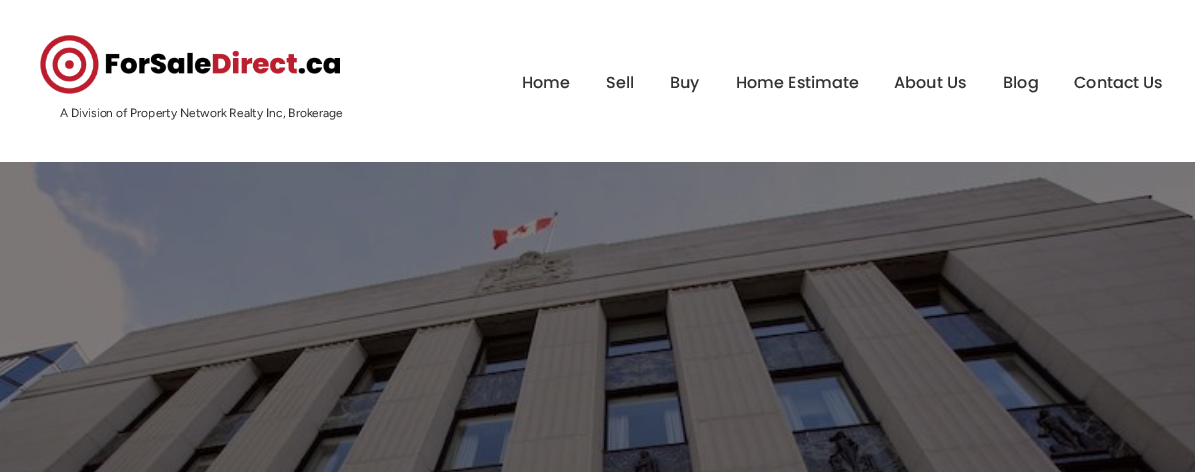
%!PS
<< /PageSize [1195 472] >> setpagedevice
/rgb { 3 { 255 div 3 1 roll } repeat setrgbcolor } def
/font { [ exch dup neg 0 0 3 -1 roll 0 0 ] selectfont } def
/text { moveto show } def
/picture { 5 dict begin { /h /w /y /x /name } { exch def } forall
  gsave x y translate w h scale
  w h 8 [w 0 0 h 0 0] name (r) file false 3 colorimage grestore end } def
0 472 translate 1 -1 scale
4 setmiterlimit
255 255 255 rgb
0 0 1195 472 rectfill
(img_01.rgb) 40 35 300 59 picture
(img_02.rgb) 0 162 1195 310 picture
/Poppins-Medium 16 font
51 51 51 rgb
(Home) 522 88 text
(Sell) 606 88 text
(Buy) 670 88 text
(Home Estimate) 736 88 text
(About Us) 894 88 text
(Blog) 1003 88 text
(Contact Us) 1074 88 text
/Figtree-Regular 12 font
(A Division of Property Network Realty Inc, Brokerage) 60 117 text
showpage
